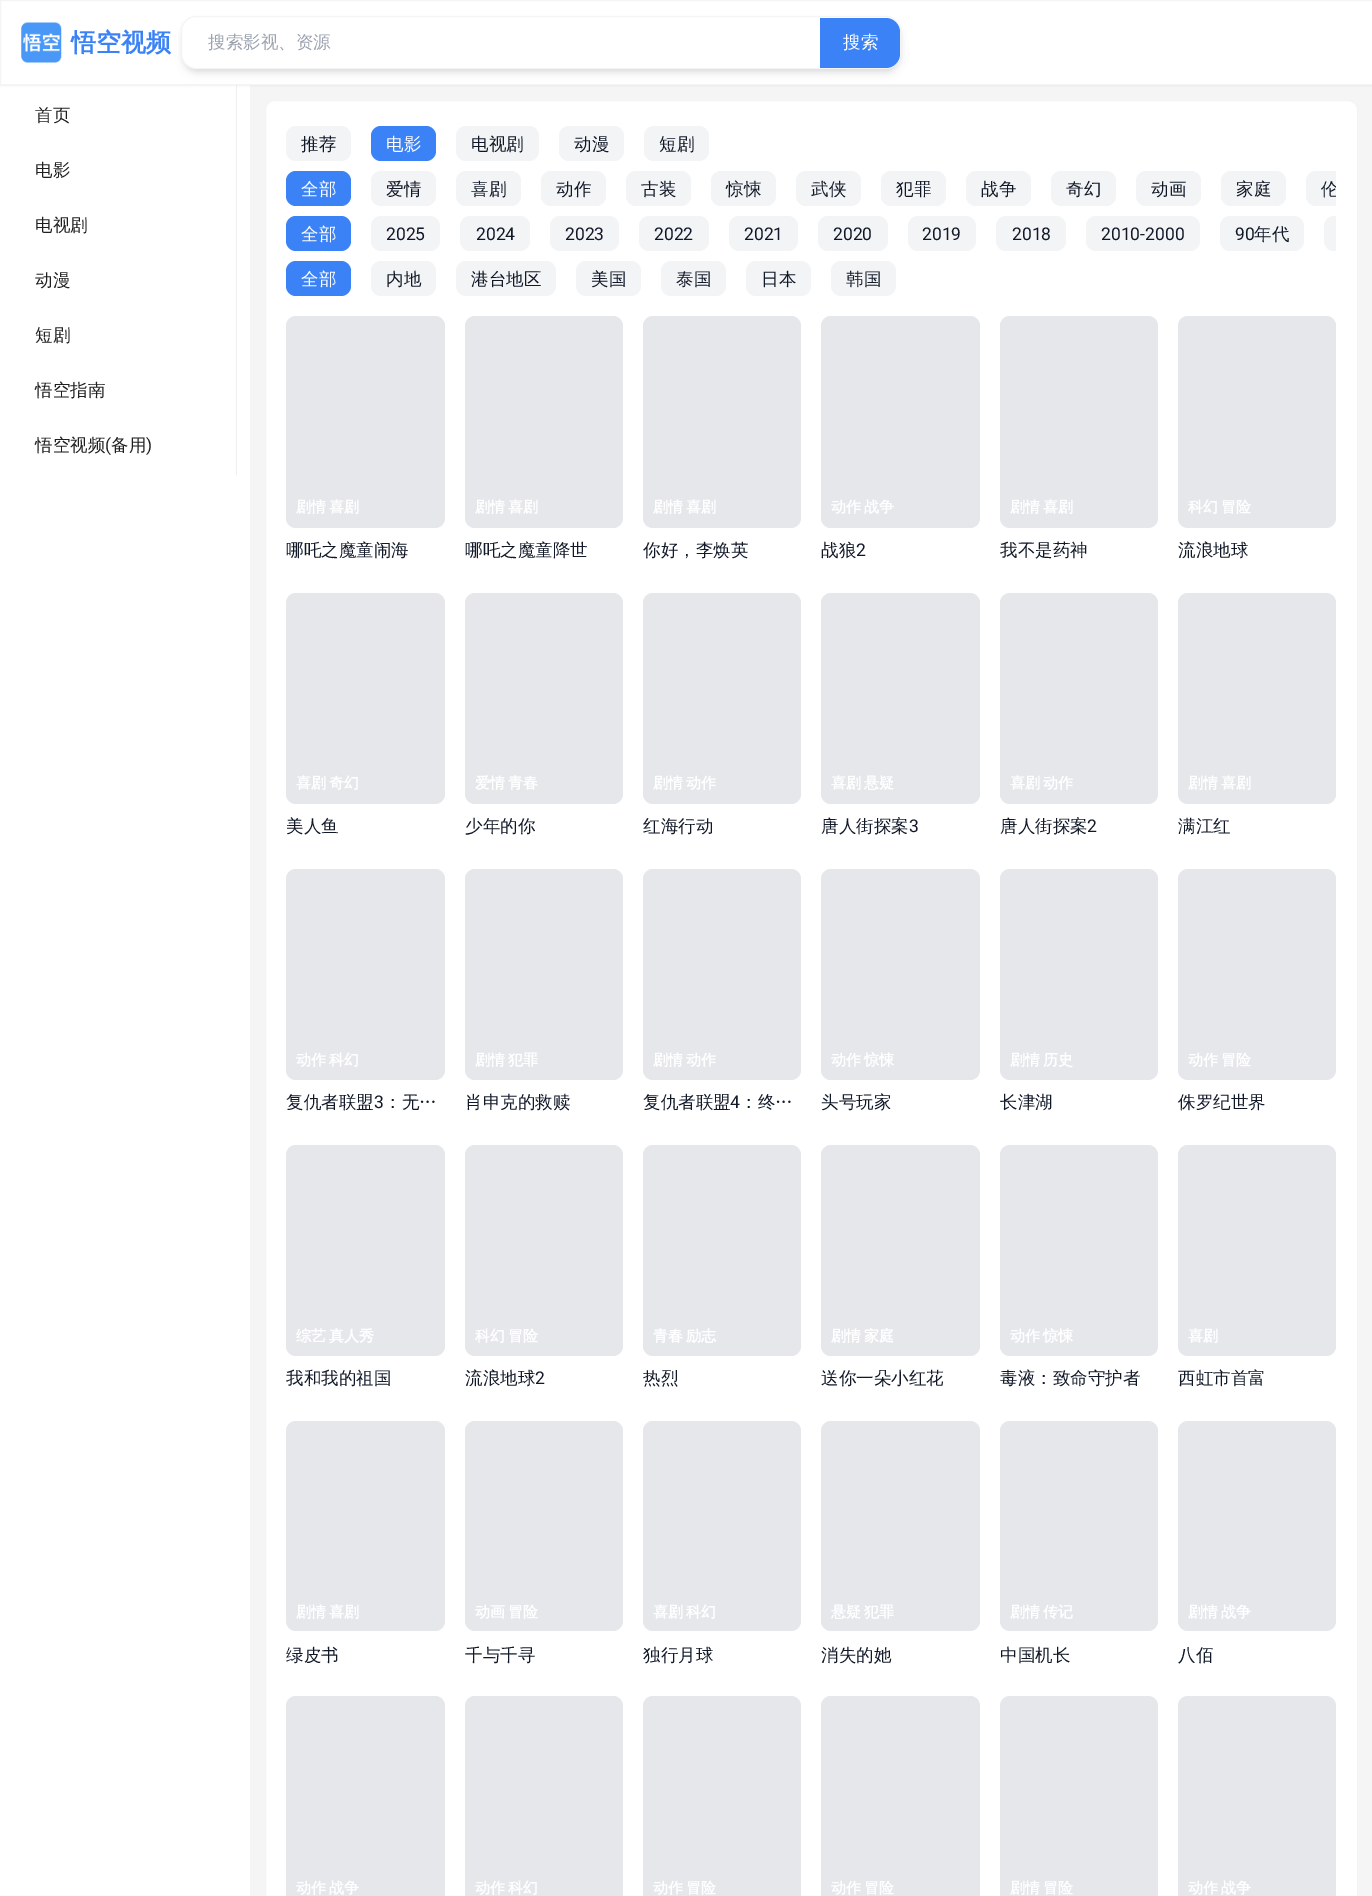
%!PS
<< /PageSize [1372 1896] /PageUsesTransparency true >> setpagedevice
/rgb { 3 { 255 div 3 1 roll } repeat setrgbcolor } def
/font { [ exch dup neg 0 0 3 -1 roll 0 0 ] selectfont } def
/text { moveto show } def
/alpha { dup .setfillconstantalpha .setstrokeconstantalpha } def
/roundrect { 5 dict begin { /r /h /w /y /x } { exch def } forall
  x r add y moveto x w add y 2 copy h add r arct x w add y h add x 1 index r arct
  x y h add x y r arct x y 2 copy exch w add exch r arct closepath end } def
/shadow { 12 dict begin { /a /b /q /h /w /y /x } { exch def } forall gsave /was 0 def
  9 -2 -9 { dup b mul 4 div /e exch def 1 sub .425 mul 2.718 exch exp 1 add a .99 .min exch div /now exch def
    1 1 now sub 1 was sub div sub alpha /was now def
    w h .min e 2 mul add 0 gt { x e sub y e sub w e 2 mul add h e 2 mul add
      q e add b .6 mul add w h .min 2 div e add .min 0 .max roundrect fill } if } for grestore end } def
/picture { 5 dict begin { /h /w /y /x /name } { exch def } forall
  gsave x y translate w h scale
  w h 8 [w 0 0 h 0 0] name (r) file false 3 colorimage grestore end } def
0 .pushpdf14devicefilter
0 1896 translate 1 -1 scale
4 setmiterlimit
245 245 245 rgb
0 0 1372 1896 rectfill
255 255 255 rgb
0 85 250 1811 rectfill
240 240 240 rgb
236 85 1 390 rectfill
0 0 0 rgb
0 1 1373 85 0 1 0.05 shadow
255 255 255 rgb
0.5 0.5 moveto 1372 0 rlineto 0 84 rlineto -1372 0 rlineto closepath gsave fill grestore
243 244 246 rgb
stroke
(img_01.rgb) 21 22 41 41 picture
0 0 0 rgb
184 21 715 48 13 2.5 0.1 shadow
183 23 717 50 14 4 0.1 shadow
255 255 255 rgb
181.5 16.5 719 52 14.5 roundrect gsave fill grestore
243 244 246 rgb
stroke
59 130 246 rgb
820 18 moveto 66 0 rlineto 7.5 0 14 6.5 14 14 rcurveto 0 22 rlineto 0 7.5 -6.5 14 -14 14 rcurveto -66 0 rlineto closepath fill
255 255 255 rgb
265.5 100.5 1092 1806 9.5 roundrect gsave fill grestore
243 244 246 rgb
stroke
286 126 65 35 10 roundrect fill
59 130 246 rgb
371 126 65 35 10 roundrect fill
243 244 246 rgb
456 126 83 35 10 roundrect fill
559 126 65 35 10 roundrect fill
644 126 65 35 10 roundrect fill
59 130 246 rgb
286 171 65 35 10 roundrect fill
243 244 246 rgb
371 171 65 35 10 roundrect fill
456 171 65 35 10 roundrect fill
541 171 65 35 10 roundrect fill
626 171 65 35 10 roundrect fill
711 171 65 35 10 roundrect fill
796 171 65 35 10 roundrect fill
881 171 65 35 10 roundrect fill
966 171 65 35 10 roundrect fill
1051 171 65 35 10 roundrect fill
1136 171 65 35 10 roundrect fill
1221 171 65 35 10 roundrect fill
1316 171 moveto 20 0 rlineto 0 35 rlineto -20 0 rlineto -5.5 0 -10 -4.5 -10 -10 rcurveto 0 -15 rlineto 0 -5.5 4.5 -10 10 -10 rcurveto closepath fill
59 130 246 rgb
286 216 65 35 10 roundrect fill
243 244 246 rgb
371 216 69 35 10 roundrect fill
460 216 70 35 10 roundrect fill
550 216 69 35 10 roundrect fill
639 216 70 35 10 roundrect fill
729 216 69 35 10 roundrect fill
818 216 70 35 10 roundrect fill
908 216 68 35 10 roundrect fill
996 216 70 35 10 roundrect fill
1086 216 114 35 10 roundrect fill
1220 216 84 35 10 roundrect fill
1334 216 moveto 2 0 rlineto 0 35 rlineto -2 0 rlineto -5.5 0 -10 -4.5 -10 -10 rcurveto 0 -15 rlineto 0 -5.5 4.5 -10 10 -10 rcurveto closepath fill
59 130 246 rgb
286 261 65 35 10 roundrect fill
243 244 246 rgb
371 261 65 35 10 roundrect fill
456 261 100 35 10 roundrect fill
576 261 65 35 10 roundrect fill
661 261 65 35 10 roundrect fill
746 261 65 35 10 roundrect fill
831 261 65 35 10 roundrect fill
229 231 235 rgb
286 316 159 212 10 roundrect fill
465 316 158 212 10 roundrect fill
643 316 158 212 10 roundrect fill
821 316 159 212 10 roundrect fill
1000 316 158 212 10 roundrect fill
1178 316 158 212 10 roundrect fill
286 593 159 211 10 roundrect fill
465 593 158 211 10 roundrect fill
643 593 158 211 10 roundrect fill
821 593 159 211 10 roundrect fill
1000 593 158 211 10 roundrect fill
1178 593 158 211 10 roundrect fill
286 869 159 211 10 roundrect fill
465 869 158 211 10 roundrect fill
643 869 158 211 10 roundrect fill
821 869 159 211 10 roundrect fill
1000 869 158 211 10 roundrect fill
1178 869 158 211 10 roundrect fill
286 1145 159 211 10 roundrect fill
465 1145 158 211 10 roundrect fill
643 1145 158 211 10 roundrect fill
821 1145 159 211 10 roundrect fill
1000 1145 158 211 10 roundrect fill
1178 1145 158 211 10 roundrect fill
286 1421 159 210 10 roundrect fill
465 1421 158 210 10 roundrect fill
643 1421 158 210 10 roundrect fill
821 1421 159 210 10 roundrect fill
1000 1421 158 210 10 roundrect fill
1178 1421 158 210 10 roundrect fill
286 1696 159 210 10 roundrect fill
465 1696 158 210 10 roundrect fill
643 1696 158 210 10 roundrect fill
821 1696 159 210 10 roundrect fill
1000 1696 158 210 10 roundrect fill
1178 1696 158 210 10 roundrect fill
/WenQuanYiZenHei-Bold 25 font
59 130 246 rgb
(悟空视频) 71 51 text
/WenQuanYiZenHei-Medium 17.5 font
156 163 175 rgb
(搜索影视、资源) 208 48 text
255 255 255 rgb
(搜索) 843 48 text
31 31 31 rgb
(首页) 35 121 text
(电影) 35 176 text
(电视剧) 35 231 text
(动漫) 35 286 text
(短剧) 35 341 text
(悟空指南) 35 396 text
(悟空视频) 35 451 text
/Roboto-Regular 17.5 font
(\() 105 451 text
/WenQuanYiZenHei-Medium 17.5 font
(备用) 111 451 text
/Roboto-Regular 17.5 font
(\)) 146 451 text
/WenQuanYiZenHei-Medium 17.5 font
17 24 39 rgb
(推荐) 301 150 text
255 255 255 rgb
(电影) 386 150 text
17 24 39 rgb
(电视剧) 471 150 text
(动漫) 574 150 text
(短剧) 659 150 text
255 255 255 rgb
(全部) 301 195 text
17 24 39 rgb
(爱情) 386 195 text
(喜剧) 471 195 text
(动作) 556 195 text
(古装) 641 195 text
(惊悚) 726 195 text
(武侠) 811 195 text
(犯罪) 896 195 text
(战争) 981 195 text
(奇幻) 1066 195 text
(动画) 1151 195 text
(家庭) 1236 195 text
gsave
286 171 1050 35 rectclip
(伦) 1321 195 text
grestore
255 255 255 rgb
(全部) 301 240 text
/Roboto-Regular 17.5 font
17 24 39 rgb
(2025) 386 240 text
(2024) 476 240 text
(2023) 565 240 text
(2022) 654 240 text
(2021) 744 240 text
(2020) 833 240 text
(2019) 922 240 text
(2018) 1012 240 text
(2010-2000) 1101 240 text
(90) 1235 240 text
/WenQuanYiZenHei-Medium 17.5 font
(年代) 1254 240 text
255 255 255 rgb
(全部) 301 285 text
17 24 39 rgb
(内地) 386 285 text
(港台地区) 471 285 text
(美国) 591 285 text
(泰国) 676 285 text
(日本) 761 285 text
(韩国) 846 285 text
/WenQuanYiZenHei-Bold 15 font
255 255 255 rgb
296 512 moveto -1 0 32 (剧情 喜剧) widthshow
/WenQuanYiZenHei-Medium 17.5 font
17 24 39 rgb
(哪吒之魔童闹海) 286 556 text
/WenQuanYiZenHei-Bold 15 font
255 255 255 rgb
475 512 moveto -1 0 32 (剧情 喜剧) widthshow
/WenQuanYiZenHei-Medium 17.5 font
17 24 39 rgb
(哪吒之魔童降世) 465 556 text
/WenQuanYiZenHei-Bold 15 font
255 255 255 rgb
653 512 moveto -1 0 32 (剧情 喜剧) widthshow
/WenQuanYiZenHei-Medium 17.5 font
17 24 39 rgb
(你好，李焕英) 643 556 text
/WenQuanYiZenHei-Bold 15 font
255 255 255 rgb
831 512 moveto -1 0 32 (动作 战争) widthshow
/WenQuanYiZenHei-Medium 17.5 font
17 24 39 rgb
(战狼) 821 556 text
/Roboto-Regular 17.5 font
(2) 856 556 text
/WenQuanYiZenHei-Bold 15 font
255 255 255 rgb
1010 512 moveto -1 0 32 (剧情 喜剧) widthshow
/WenQuanYiZenHei-Medium 17.5 font
17 24 39 rgb
(我不是药神) 1000 556 text
/WenQuanYiZenHei-Bold 15 font
255 255 255 rgb
1188 512 moveto -1 0 32 (科幻 冒险) widthshow
/WenQuanYiZenHei-Medium 17.5 font
17 24 39 rgb
(流浪地球) 1178 556 text
/WenQuanYiZenHei-Bold 15 font
255 255 255 rgb
296 788 moveto -1 0 32 (喜剧 奇幻) widthshow
/WenQuanYiZenHei-Medium 17.5 font
17 24 39 rgb
(美人鱼) 286 832 text
/WenQuanYiZenHei-Bold 15 font
255 255 255 rgb
475 788 moveto -1 0 32 (爱情 青春) widthshow
/WenQuanYiZenHei-Medium 17.5 font
17 24 39 rgb
(少年的你) 465 832 text
/WenQuanYiZenHei-Bold 15 font
255 255 255 rgb
653 788 moveto -1 0 32 (剧情 动作) widthshow
/WenQuanYiZenHei-Medium 17.5 font
17 24 39 rgb
(红海行动) 643 832 text
/WenQuanYiZenHei-Bold 15 font
255 255 255 rgb
831 788 moveto -1 0 32 (喜剧 悬疑) widthshow
/WenQuanYiZenHei-Medium 17.5 font
17 24 39 rgb
(唐人街探案) 821 832 text
/Roboto-Regular 17.5 font
(3) 909 832 text
/WenQuanYiZenHei-Bold 15 font
255 255 255 rgb
1010 788 moveto -1 0 32 (喜剧 动作) widthshow
/WenQuanYiZenHei-Medium 17.5 font
17 24 39 rgb
(唐人街探案) 1000 832 text
/Roboto-Regular 17.5 font
(2) 1087 832 text
/WenQuanYiZenHei-Bold 15 font
255 255 255 rgb
1188 788 moveto -1 0 32 (剧情 喜剧) widthshow
/WenQuanYiZenHei-Medium 17.5 font
17 24 39 rgb
(满江红) 1178 832 text
/WenQuanYiZenHei-Bold 15 font
255 255 255 rgb
296 1065 moveto -1 0 32 (动作 科幻) widthshow
/WenQuanYiZenHei-Medium 17.5 font
17 24 39 rgb
(复仇者联盟) 286 1108 text
/Roboto-Regular 17.5 font
(3) 374 1108 text
/WenQuanYiZenHei-Medium 17.5 font
(：无…) 384 1108 text
/WenQuanYiZenHei-Bold 15 font
255 255 255 rgb
475 1065 moveto -1 0 32 (剧情 犯罪) widthshow
/WenQuanYiZenHei-Medium 17.5 font
17 24 39 rgb
(肖申克的救赎) 465 1108 text
/WenQuanYiZenHei-Bold 15 font
255 255 255 rgb
653 1065 moveto -1 0 32 (剧情 动作) widthshow
/WenQuanYiZenHei-Medium 17.5 font
17 24 39 rgb
(复仇者联盟) 643 1108 text
/Roboto-Regular 17.5 font
(4) 730 1108 text
/WenQuanYiZenHei-Medium 17.5 font
(：终…) 740 1108 text
/WenQuanYiZenHei-Bold 15 font
255 255 255 rgb
831 1065 moveto -1 0 32 (动作 惊悚) widthshow
/WenQuanYiZenHei-Medium 17.5 font
17 24 39 rgb
(头号玩家) 821 1108 text
/WenQuanYiZenHei-Bold 15 font
255 255 255 rgb
1010 1065 moveto -1 0 32 (剧情 历史) widthshow
/WenQuanYiZenHei-Medium 17.5 font
17 24 39 rgb
(长津湖) 1000 1108 text
/WenQuanYiZenHei-Bold 15 font
255 255 255 rgb
1188 1065 moveto -1 0 32 (动作 冒险) widthshow
/WenQuanYiZenHei-Medium 17.5 font
17 24 39 rgb
(侏罗纪世界) 1178 1108 text
/WenQuanYiZenHei-Bold 15 font
255 255 255 rgb
296 1341 moveto -1 0 32 (综艺 真人秀) widthshow
/WenQuanYiZenHei-Medium 17.5 font
17 24 39 rgb
(我和我的祖国) 286 1384 text
/WenQuanYiZenHei-Bold 15 font
255 255 255 rgb
475 1341 moveto -1 0 32 (科幻 冒险) widthshow
/WenQuanYiZenHei-Medium 17.5 font
17 24 39 rgb
(流浪地球) 465 1384 text
/Roboto-Regular 17.5 font
(2) 535 1384 text
/WenQuanYiZenHei-Bold 15 font
255 255 255 rgb
653 1341 moveto -1 0 32 (青春 励志) widthshow
/WenQuanYiZenHei-Medium 17.5 font
17 24 39 rgb
(热烈) 643 1384 text
/WenQuanYiZenHei-Bold 15 font
255 255 255 rgb
831 1341 moveto -1 0 32 (剧情 家庭) widthshow
/WenQuanYiZenHei-Medium 17.5 font
17 24 39 rgb
(送你一朵小红花) 821 1384 text
/WenQuanYiZenHei-Bold 15 font
255 255 255 rgb
1010 1341 moveto -1 0 32 (动作 惊悚) widthshow
/WenQuanYiZenHei-Medium 17.5 font
17 24 39 rgb
(毒液：致命守护者) 1000 1384 text
/WenQuanYiZenHei-Bold 15 font
255 255 255 rgb
(喜剧) 1188 1341 text
/WenQuanYiZenHei-Medium 17.5 font
17 24 39 rgb
(西虹市首富) 1178 1384 text
/WenQuanYiZenHei-Bold 15 font
255 255 255 rgb
296 1617 moveto -1 0 32 (剧情 喜剧) widthshow
/WenQuanYiZenHei-Medium 17.5 font
17 24 39 rgb
(绿皮书) 286 1661 text
/WenQuanYiZenHei-Bold 15 font
255 255 255 rgb
475 1617 moveto -1 0 32 (动画 冒险) widthshow
/WenQuanYiZenHei-Medium 17.5 font
17 24 39 rgb
(千与千寻) 465 1661 text
/WenQuanYiZenHei-Bold 15 font
255 255 255 rgb
653 1617 moveto -1 0 32 (喜剧 科幻) widthshow
/WenQuanYiZenHei-Medium 17.5 font
17 24 39 rgb
(独行月球) 643 1661 text
/WenQuanYiZenHei-Bold 15 font
255 255 255 rgb
831 1617 moveto -1 0 32 (悬疑 犯罪) widthshow
/WenQuanYiZenHei-Medium 17.5 font
17 24 39 rgb
(消失的她) 821 1661 text
/WenQuanYiZenHei-Bold 15 font
255 255 255 rgb
1010 1617 moveto -1 0 32 (剧情 传记) widthshow
/WenQuanYiZenHei-Medium 17.5 font
17 24 39 rgb
(中国机长) 1000 1661 text
/WenQuanYiZenHei-Bold 15 font
255 255 255 rgb
1188 1617 moveto -1 0 32 (剧情 战争) widthshow
/WenQuanYiZenHei-Medium 17.5 font
17 24 39 rgb
(八佰) 1178 1661 text
/WenQuanYiZenHei-Bold 15 font
255 255 255 rgb
296 1893 moveto -1 0 32 (动作 战争) widthshow
475 1893 moveto -1 0 32 (动作 科幻) widthshow
653 1893 moveto -1 0 32 (动作 冒险) widthshow
831 1893 moveto -1 0 32 (动作 冒险) widthshow
1010 1893 moveto -1 0 32 (剧情 冒险) widthshow
1188 1893 moveto -1 0 32 (动作 战争) widthshow
.poppdf14devicefilter showpage
